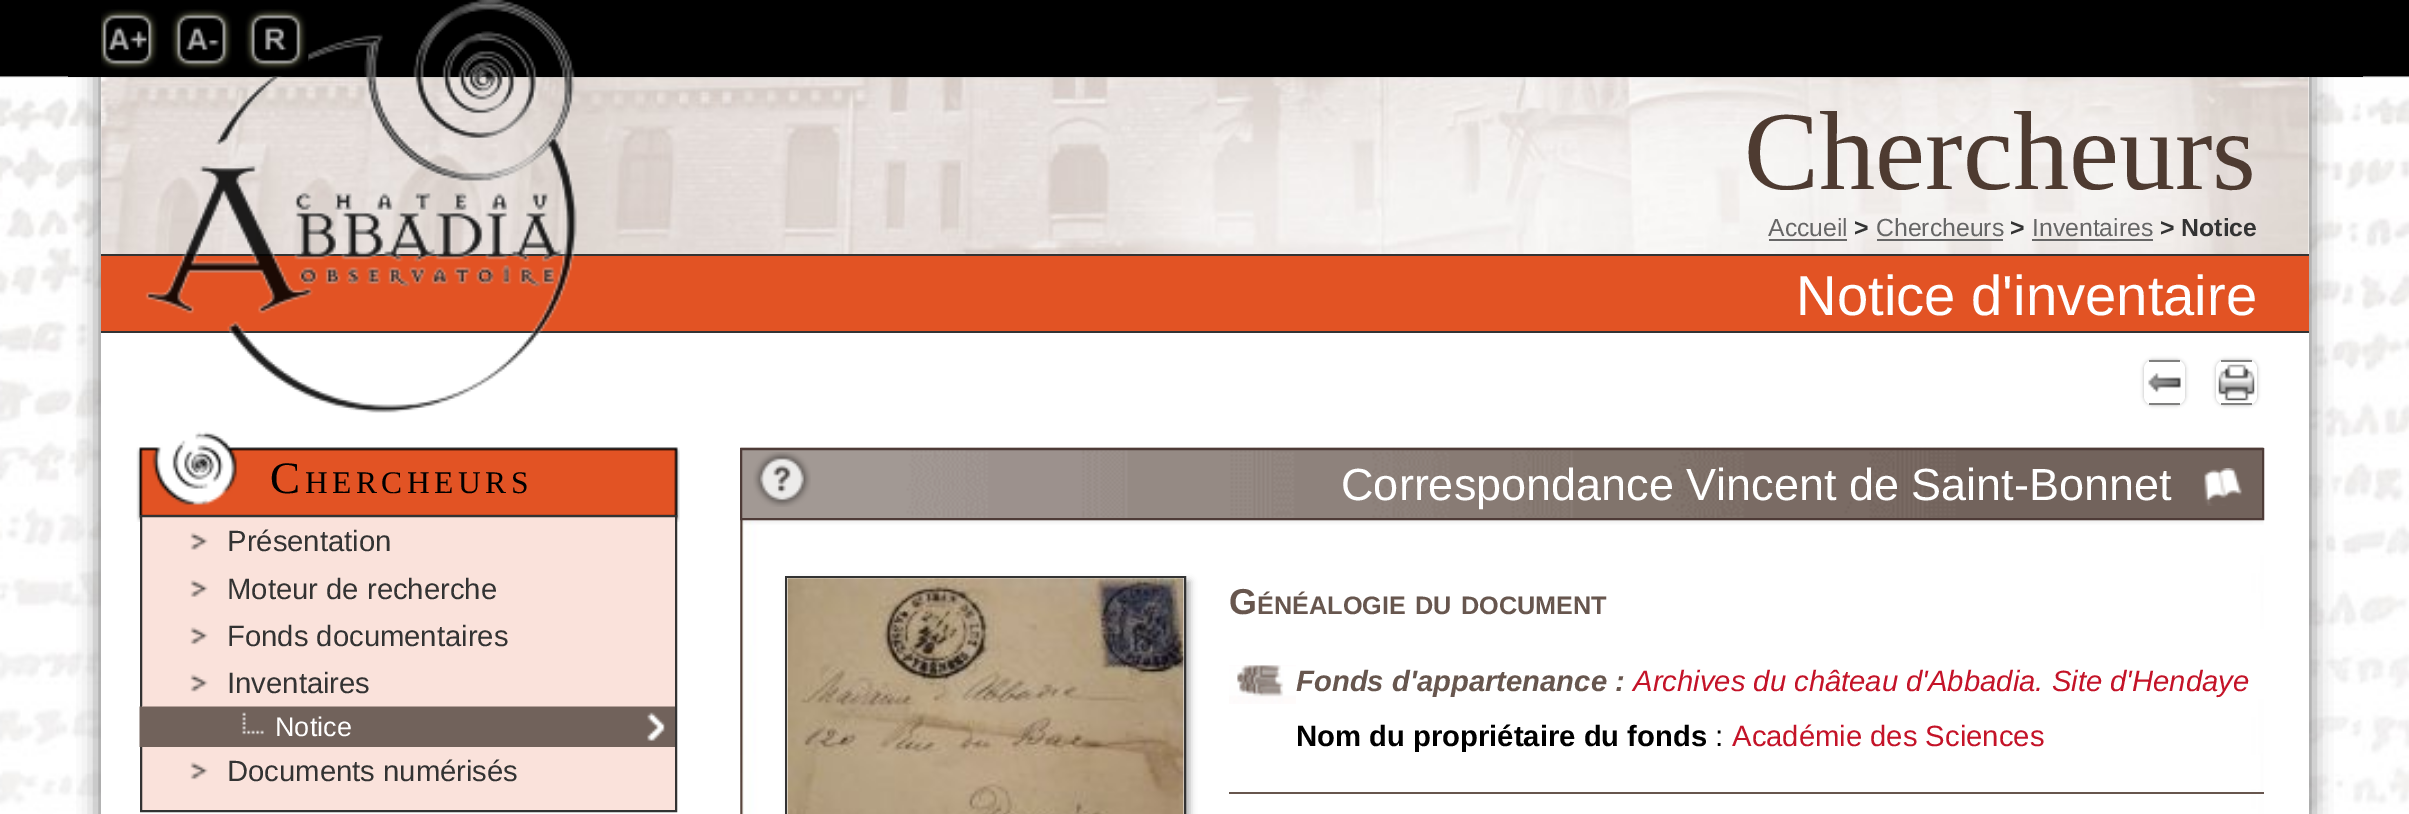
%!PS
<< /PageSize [2409 814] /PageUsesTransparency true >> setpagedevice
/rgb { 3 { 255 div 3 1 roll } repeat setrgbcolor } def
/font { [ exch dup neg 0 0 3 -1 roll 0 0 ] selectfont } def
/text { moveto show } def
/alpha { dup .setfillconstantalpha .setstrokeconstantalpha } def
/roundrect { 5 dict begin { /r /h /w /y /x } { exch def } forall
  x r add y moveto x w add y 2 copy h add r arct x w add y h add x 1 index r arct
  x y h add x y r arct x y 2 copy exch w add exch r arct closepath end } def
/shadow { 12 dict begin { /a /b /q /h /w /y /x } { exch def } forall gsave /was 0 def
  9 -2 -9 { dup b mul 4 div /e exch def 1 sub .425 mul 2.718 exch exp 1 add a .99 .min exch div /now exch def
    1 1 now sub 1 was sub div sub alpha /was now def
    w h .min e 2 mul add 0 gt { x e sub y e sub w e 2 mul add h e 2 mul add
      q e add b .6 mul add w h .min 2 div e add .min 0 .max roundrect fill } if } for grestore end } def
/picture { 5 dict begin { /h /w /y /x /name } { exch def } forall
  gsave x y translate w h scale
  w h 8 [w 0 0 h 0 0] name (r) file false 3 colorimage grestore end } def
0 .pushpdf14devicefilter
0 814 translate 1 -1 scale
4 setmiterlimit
255 255 255 rgb
0 0 2409 814 rectfill
(img_01.rgb) 0 0 2409 814 picture
101 101 101 rgb
101 0 2208 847 0 11 1 shadow
255 255 255 rgb
101 77 2208 737 rectfill
(img_02.rgb) 101 77 2208 177 picture
0 0 0 rgb
68 0 2295 77 rectfill
226 83 36 rgb
101 256 2208 75 rectfill
51 51 51 rgb
101 254 2208 2 rectfill
101 331 2208 2 rectfill
(img_03.rgb) 145 0 432 413 picture
(img_04.rgb) 145 0 432 413 picture
(img_05.rgb) 101 9 57 61 picture
(img_06.rgb) 171 9 61 61 picture
(img_07.rgb) 245 9 64 68 picture
102 102 102 rgb
1769 239 78 2 rectfill
1877 239 126 2 rectfill
2032 239 121 2 rectfill
0 0 0 rgb
2144 360 41 45 9 2 0.3 shadow
255 255 255 rgb
2144 360 41 45 9 roundrect fill
128 128 127 rgb
2149 360 31 2 rectfill
(img_08.rgb) 2148 373 33 20 picture
2149 403 31 2 rectfill
0 0 0 rgb
2216 360 41 45 9 2 0.3 shadow
255 255 255 rgb
2216 360 41 45 9 roundrect fill
128 128 127 rgb
2221 360 31 2 rectfill
2221 403 31 2 rectfill
(img_09.rgb) 2218 364 37 37 picture
(img_10.rgb) 136 431 544 91 picture
250 226 219 rgb
141 516 moveto 535 0 rlineto 0 295 rlineto -535 0 rlineto closepath gsave fill grestore
51 51 51 rgb
2 setlinewidth
stroke
(img_11.rgb) 190 532 18 18 picture
(img_12.rgb) 190 580 18 17 picture
(img_13.rgb) 190 627 18 18 picture
(img_14.rgb) 190 674 18 18 picture
(img_15.rgb) 139 706 536 41 picture
(img_13.rgb) 190 762 18 18 picture
(img_16.rgb) 740 447 1524 367 picture
(img_18.rgb) 740 447 1524 71 picture
78 59 55 rgb
741 449 1522 70 rectstroke
(img_17.rgb) 753 452 58 55 picture
(img_19.rgb) 2204 468 38 38 picture
0 0 0 rgb
790 581 400 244 0 3.5 0.3 shadow
51 51 51 rgb
786 577 399 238 rectstroke
(img_20.rgb) 787 578 397 236 picture
103 86 78 rgb
1229 792 1035 2 rectfill
(img_21.rgb) 1229 665 67 39 picture
/LiberationSerif-Regular 112.5 font
78 59 49 rgb
(Chercheurs) 1744 189 text
/LiberationSans-Regular 24.75 font
102 102 102 rgb
(Accueil) 1768 236 text
/LiberationSans-Bold 24.75 font
51 51 51 rgb
(>) 1854 236 text
/LiberationSans-Regular 24.75 font
102 102 102 rgb
(Chercheurs) 1876 236 text
/LiberationSans-Bold 24.75 font
51 51 51 rgb
(>) 2010 236 text
/LiberationSans-Regular 24.75 font
102 102 102 rgb
(Inventaires) 2032 236 text
/LiberationSans-Bold 24.75 font
51 51 51 rgb
(> Notice) 2160 236 text
/LiberationSans-Regular 56.25 font
255 255 255 rgb
(Notice d'inventaire) 1796 315 text
/LiberationSerif-Regular 45 font
0 0 0 rgb
270 493 moveto 4.5 0 (C) ashow
/LiberationSerif-Regular 31.5 font
305 493 moveto 4.5 0 (HERCHEURS) ashow
/LiberationSans-Regular 29.25 font
51 51 51 rgb
(Présentation) 227 551 text
(Moteur de recherche) 227 599 text
(Fonds documentaires) 227 646 text
(Inventaires) 227 693 text
/LiberationSans-Regular 27 font
255 255 255 rgb
(Notice) 275 736 text
/LiberationSans-Regular 29.25 font
51 51 51 rgb
(Documents numérisés) 227 781 text
/LiberationSans-Regular 45 font
255 255 255 rgb
(Correspondance Vincent de Saint-Bonnet) 1341 500 text
/LiberationSans-Bold 36 font
103 86 78 rgb
(G) 1229 614 text
/LiberationSans-Bold 25.25 font
(ÉNÉALOGIE) 1257 614 text
(DU) 1415 614 text
(DOCUMENT) 1461 614 text
/LiberationSans-BoldItalic 29.25 font
(Fonds d'appartenance :) 1296 691 text
/LiberationSans-Italic 29.25 font
196 19 40 rgb
(Archives du château d'Abbadia. Site d'Hendaye) 1633 691 text
/LiberationSans-Bold 29.25 font
0 0 0 rgb
(Nom du propriétaire du fonds) 1296 746 text
/LiberationSans-Regular 29.25 font
(:) 1715 746 text
196 19 40 rgb
(Académie des Sciences) 1732 746 text
.poppdf14devicefilter showpage
